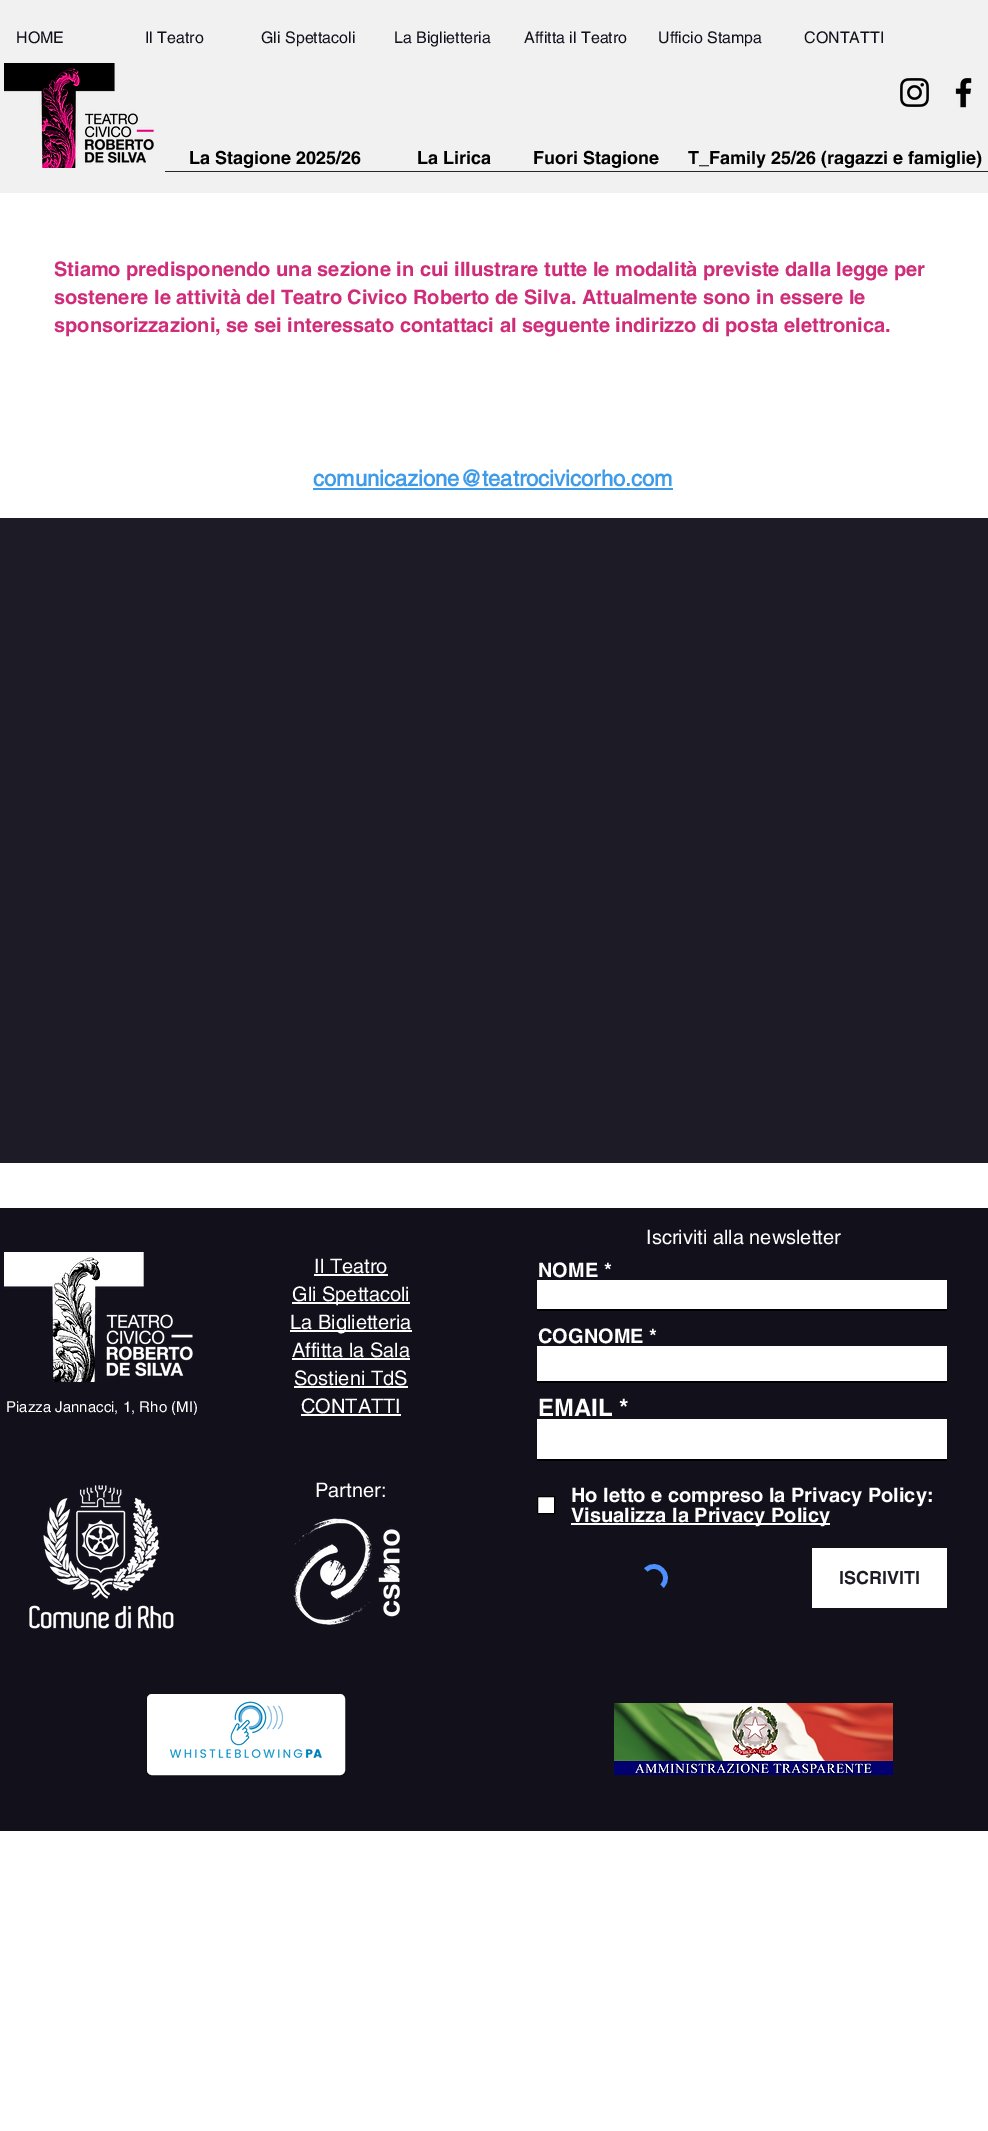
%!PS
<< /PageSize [988 2131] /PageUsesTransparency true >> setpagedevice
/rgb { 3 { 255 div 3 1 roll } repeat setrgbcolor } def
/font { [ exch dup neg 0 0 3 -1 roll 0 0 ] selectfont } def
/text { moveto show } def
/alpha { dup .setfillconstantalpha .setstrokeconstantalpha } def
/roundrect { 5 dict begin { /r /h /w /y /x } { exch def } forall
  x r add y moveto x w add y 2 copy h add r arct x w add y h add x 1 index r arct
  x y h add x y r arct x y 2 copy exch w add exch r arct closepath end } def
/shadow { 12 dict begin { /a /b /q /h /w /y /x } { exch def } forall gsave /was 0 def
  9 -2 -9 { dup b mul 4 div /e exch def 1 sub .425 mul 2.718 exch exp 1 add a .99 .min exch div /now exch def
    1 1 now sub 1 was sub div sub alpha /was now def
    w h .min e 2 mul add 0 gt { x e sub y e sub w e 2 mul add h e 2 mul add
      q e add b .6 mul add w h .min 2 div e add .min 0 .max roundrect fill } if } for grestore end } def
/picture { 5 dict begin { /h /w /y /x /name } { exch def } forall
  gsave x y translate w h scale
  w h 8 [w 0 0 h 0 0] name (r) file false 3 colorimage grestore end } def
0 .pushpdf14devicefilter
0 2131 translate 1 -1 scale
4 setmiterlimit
255 255 255 rgb
0 0 988 2131 rectfill
241 241 241 rgb
0 0 988 193 rectfill
(img_01.rgb) 4 63 150 105 picture
(img_02.rgb) 900 78 29 29 picture
(img_03.rgb) 955 78 17 30 picture
40 38 38 rgb
165 171 823 1 rectfill
61 155 233 rgb
313 488 360 2 rectfill
29 27 38 rgb
0 518 988 645 rectfill
18 16 27 rgb
0 1208 988 623 rectfill
(img_04.rgb) 4 1252 189 130 picture
255 255 255 rgb
314 1274 74 2 rectfill
292 1302 118 2 rectfill
290 1330 122 2 rectfill
292 1358 118 2 rectfill
294 1386 114 2 rectfill
301 1414 100 2 rectfill
537 1280 410 29 rectfill
0 0 0 rgb
537 1309 410 2 rectfill
255 255 255 rgb
537 1346 410 35 rectfill
0 0 0 rgb
537 1381 410 2 rectfill
255 255 255 rgb
537 1419 410 40 rectfill
0 0 0 rgb
537 1459 410 2 rectfill
255 255 255 rgb
537.5 1496.5 moveto 17 0 rlineto 0 17 rlineto -17 0 rlineto closepath gsave fill grestore
0 0 0 rgb
stroke
255 255 255 rgb
571 1523 259 2 rectfill
77 144 254 rgb
4.6 setlinewidth
646 1570 moveto 10.5 -11 27 5.5 16 16 rcurveto stroke
255 255 255 rgb
812 1548 135 60 rectfill
(img_05.rgb) 29 1485 145 144 picture
(img_06.rgb) 293 1518 107 107 picture
0 0 0 rgb
147 1695 198 81 5 1.5 0.5 shadow
255 255 255 rgb
148 1695 196 79 4 roundrect gsave fill grestore
2 setlinewidth
stroke
(img_07.rgb) 169 1701 153 57 picture
(img_08.rgb) 614 1703 279 72 picture
/helvetica-Regular 16 font
18 16 27 rgb
(HOME) 16 43 text
(Il Teatro) 145 43 text
(Gli Spettacoli) 261 43 text
(La Biglietteria) 394 43 text
(Affitta il Teatro) 524 43 text
(Ufficio Stampa) 658 43 text
(CONTATTI) 804 43 text
/helvetica-Bold 18 font
0 0 0 rgb
(La Stagione 2025/26) 189 164 text
(La Lirica) 417 164 text
(Fuori Stagione) 533 164 text
(T_Family 25/26 \(ragazzi e famiglie\)) 688 164 text
/helvetica-Bold 20 font
207 44 122 rgb
(Stiamo predisponendo una sezione in cui illustrare tutte le modalità previste dalla legge per) 54 276 text
(sostenere le attività del Teatro Civico Roberto de Silva. Attualmente sono in essere le) 54 304 text
(sponsorizzazioni, se sei interessato contattaci al seguente indirizzo di posta elettronica.) 54 332 text
/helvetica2-Bold 22 font
61 155 233 rgb
(comunicazione@teatrocivicorho.com) 313 486 text
/helvetica-Regular 20 font
255 255 255 rgb
(Iscriviti alla newsletter) 646 1244 text
(Il Teatro) 314 1273 text
(Gli Spettacoli) 292 1301 text
(La Biglietteria) 290 1329 text
(Affitta la Sala) 292 1357 text
(Sostieni TdS) 294 1385 text
(CONTATTI) 301 1413 text
/helvetica-Bold 20 font
(NOME *) 538 1277 text
(COGNOME *) 538 1343 text
/helvetica-Bold 24 font
(EMAIL *) 538 1416 text
/helvetica-Bold 20 font
(Ho letto e compreso la Privacy Policy:) 571 1502 text
(Visualizza la Privacy Policy) 571 1522 text
/helvetica-Bold 18 font
29 27 38 rgb
(ISCRIVITI) 839 1584 text
/helvetica-Regular 15 font
255 255 255 rgb
(Piazza Jannacci, 1, Rho \(MI\)) 6 1412 text
/helvetica-Regular 20 font
(Partner:) 315 1497 text
.poppdf14devicefilter showpage
